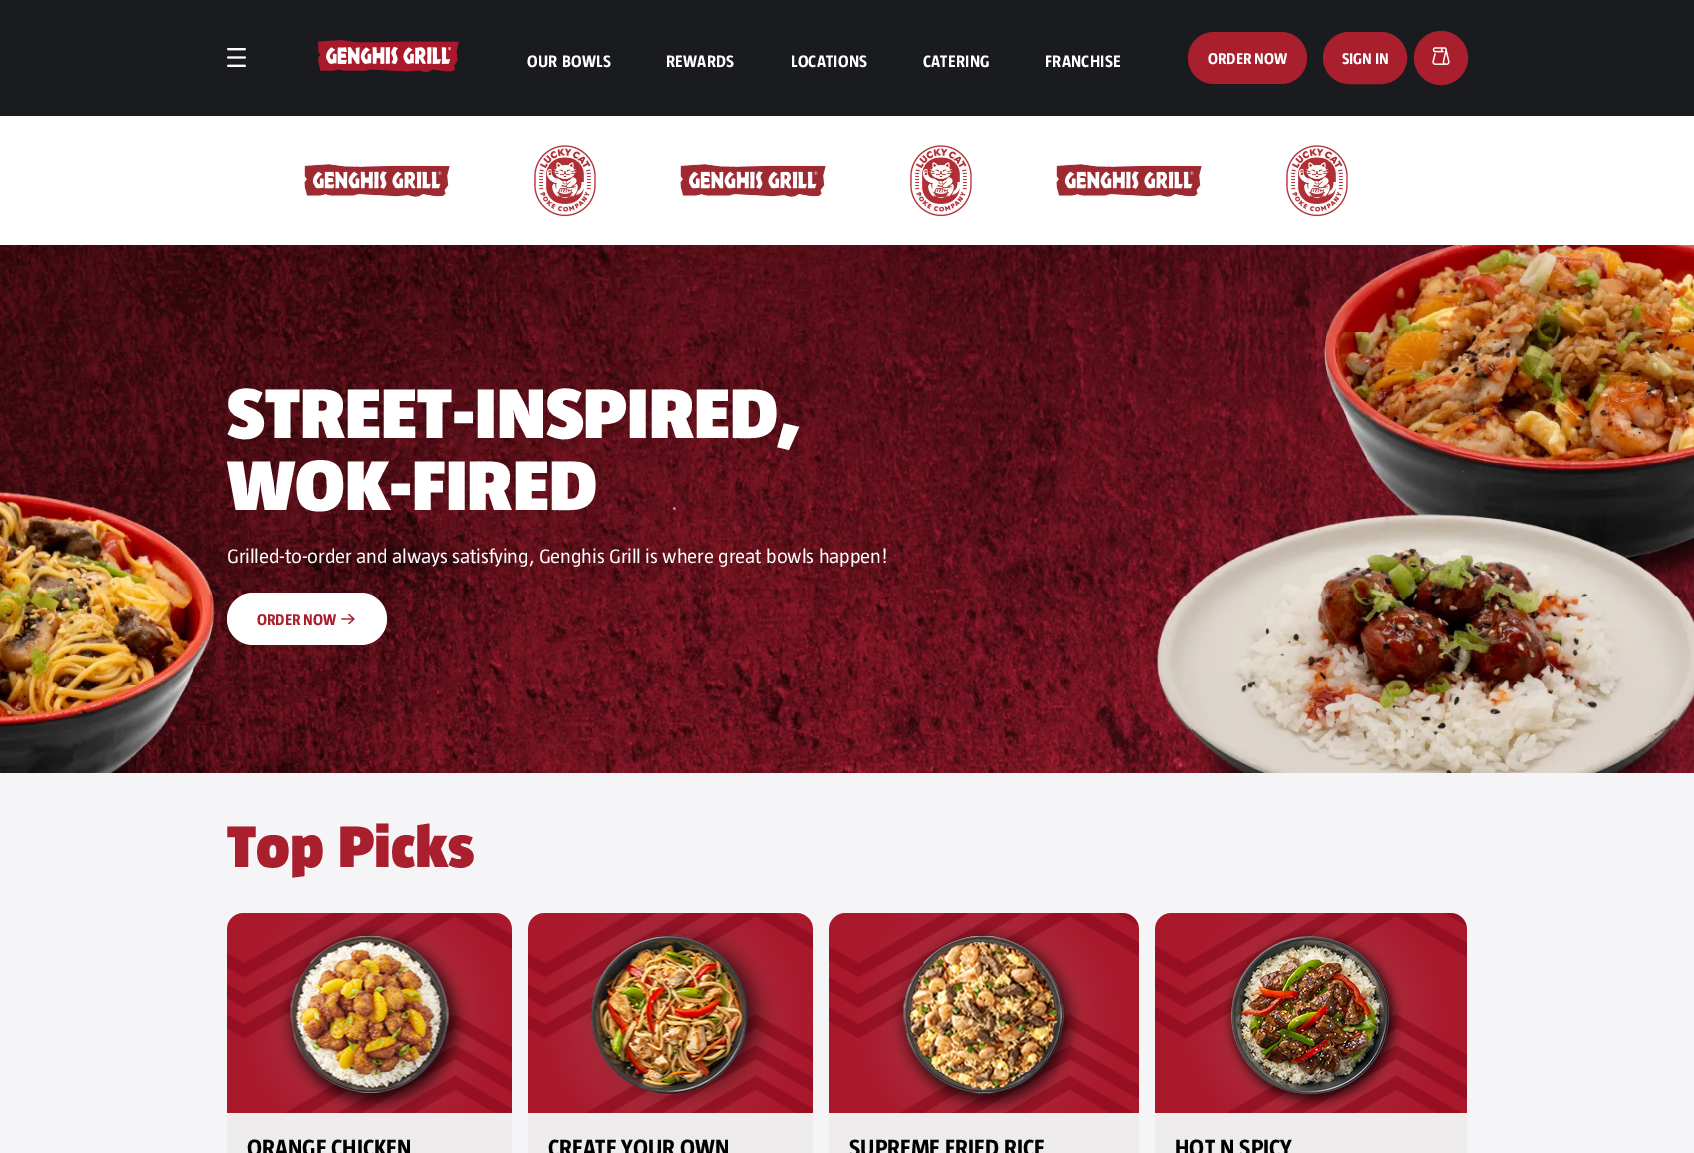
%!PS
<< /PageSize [1694 1153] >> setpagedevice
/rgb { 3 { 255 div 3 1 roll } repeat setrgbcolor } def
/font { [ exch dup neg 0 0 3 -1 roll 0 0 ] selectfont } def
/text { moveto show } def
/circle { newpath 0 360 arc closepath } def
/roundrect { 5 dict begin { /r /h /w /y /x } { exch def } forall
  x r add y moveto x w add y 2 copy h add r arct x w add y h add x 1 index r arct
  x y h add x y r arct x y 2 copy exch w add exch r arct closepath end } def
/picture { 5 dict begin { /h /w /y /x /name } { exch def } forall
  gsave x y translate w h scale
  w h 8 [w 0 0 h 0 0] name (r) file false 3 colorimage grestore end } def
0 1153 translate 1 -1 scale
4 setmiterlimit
245 245 247 rgb
0 0 1694 1153 rectfill
25 27 30 rgb
0 0 1694 116 rectfill
(img_01.rgb) 227 48 19 19 picture
(img_02.rgb) 318 40 141 32 picture
170 31 46 rgb
1188 32 119 52 26 roundrect fill
1323.5 32.5 83 51 25.5 roundrect gsave fill grestore
stroke
1441 58 26.5 circle gsave fill grestore
stroke
(img_03.rgb) 1432 47 18 18 picture
255 255 255 rgb
0 116 1694 129 rectfill
(img_04.rgb) 304 164 146 33 picture
(img_05.rgb) 534 145 62 72 picture
(img_04.rgb) 680 164 146 33 picture
(img_05.rgb) 910 145 62 72 picture
(img_04.rgb) 1056 164 146 33 picture
(img_05.rgb) 1286 145 62 72 picture
(img_06.rgb) 0 245 1694 528 picture
227 593 160 52 26 roundrect fill
(img_07.rgb) 341 613 14 12 picture
(img_08.rgb) 227 913 285 200 picture
238 236 237 rgb
227 1113 285 40 rectfill
(img_09.rgb) 528 913 285 200 picture
528 1113 285 40 rectfill
(img_10.rgb) 829 913 310 200 picture
829 1113 310 40 rectfill
(img_11.rgb) 1155 913 312 200 picture
1155 1113 312 40 rectfill
/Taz-Bold 17 font
255 255 255 rgb
527 67 moveto 0.25 0 (OUR BOWLS) ashow
666 67 moveto 0.25 0 (REWARDS) ashow
791 67 moveto 0.25 0 (LOCATIONS) ashow
923 67 moveto 0.25 0 (CATERING) ashow
1045 67 moveto 0.25 0 (FRANCHISE) ashow
/Taz-Bold 16 font
1208 64 moveto -0.15 0 (ORDER NOW) ashow
1342 64 moveto -0.15 0 (SIGN IN) ashow
/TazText-Black 72 font
(STREET-INSPIRED,) 227 438 text
(WOK-FIRED) 227 510 text
/TazText-Regular 20 font
227 563 moveto -0.15 0 (Grilled-to-order and always satisfying, Genghis Grill is where great bowls happen!) ashow
/Taz-Bold 16 font
170 31 46 rgb
257 625 moveto -0.15 0 (ORDER NOW) ashow
/TazText-Black 60 font
(Top Picks) 227 867 text
/Taz-Bold 24 font
0 0 0 rgb
(ORANGE CHICKEN) 247 1156 text
(CREATE YOUR OWN) 548 1156 text
(SUPREME FRIED RICE) 849 1156 text
(HOT N SPICY) 1175 1156 text
showpage
